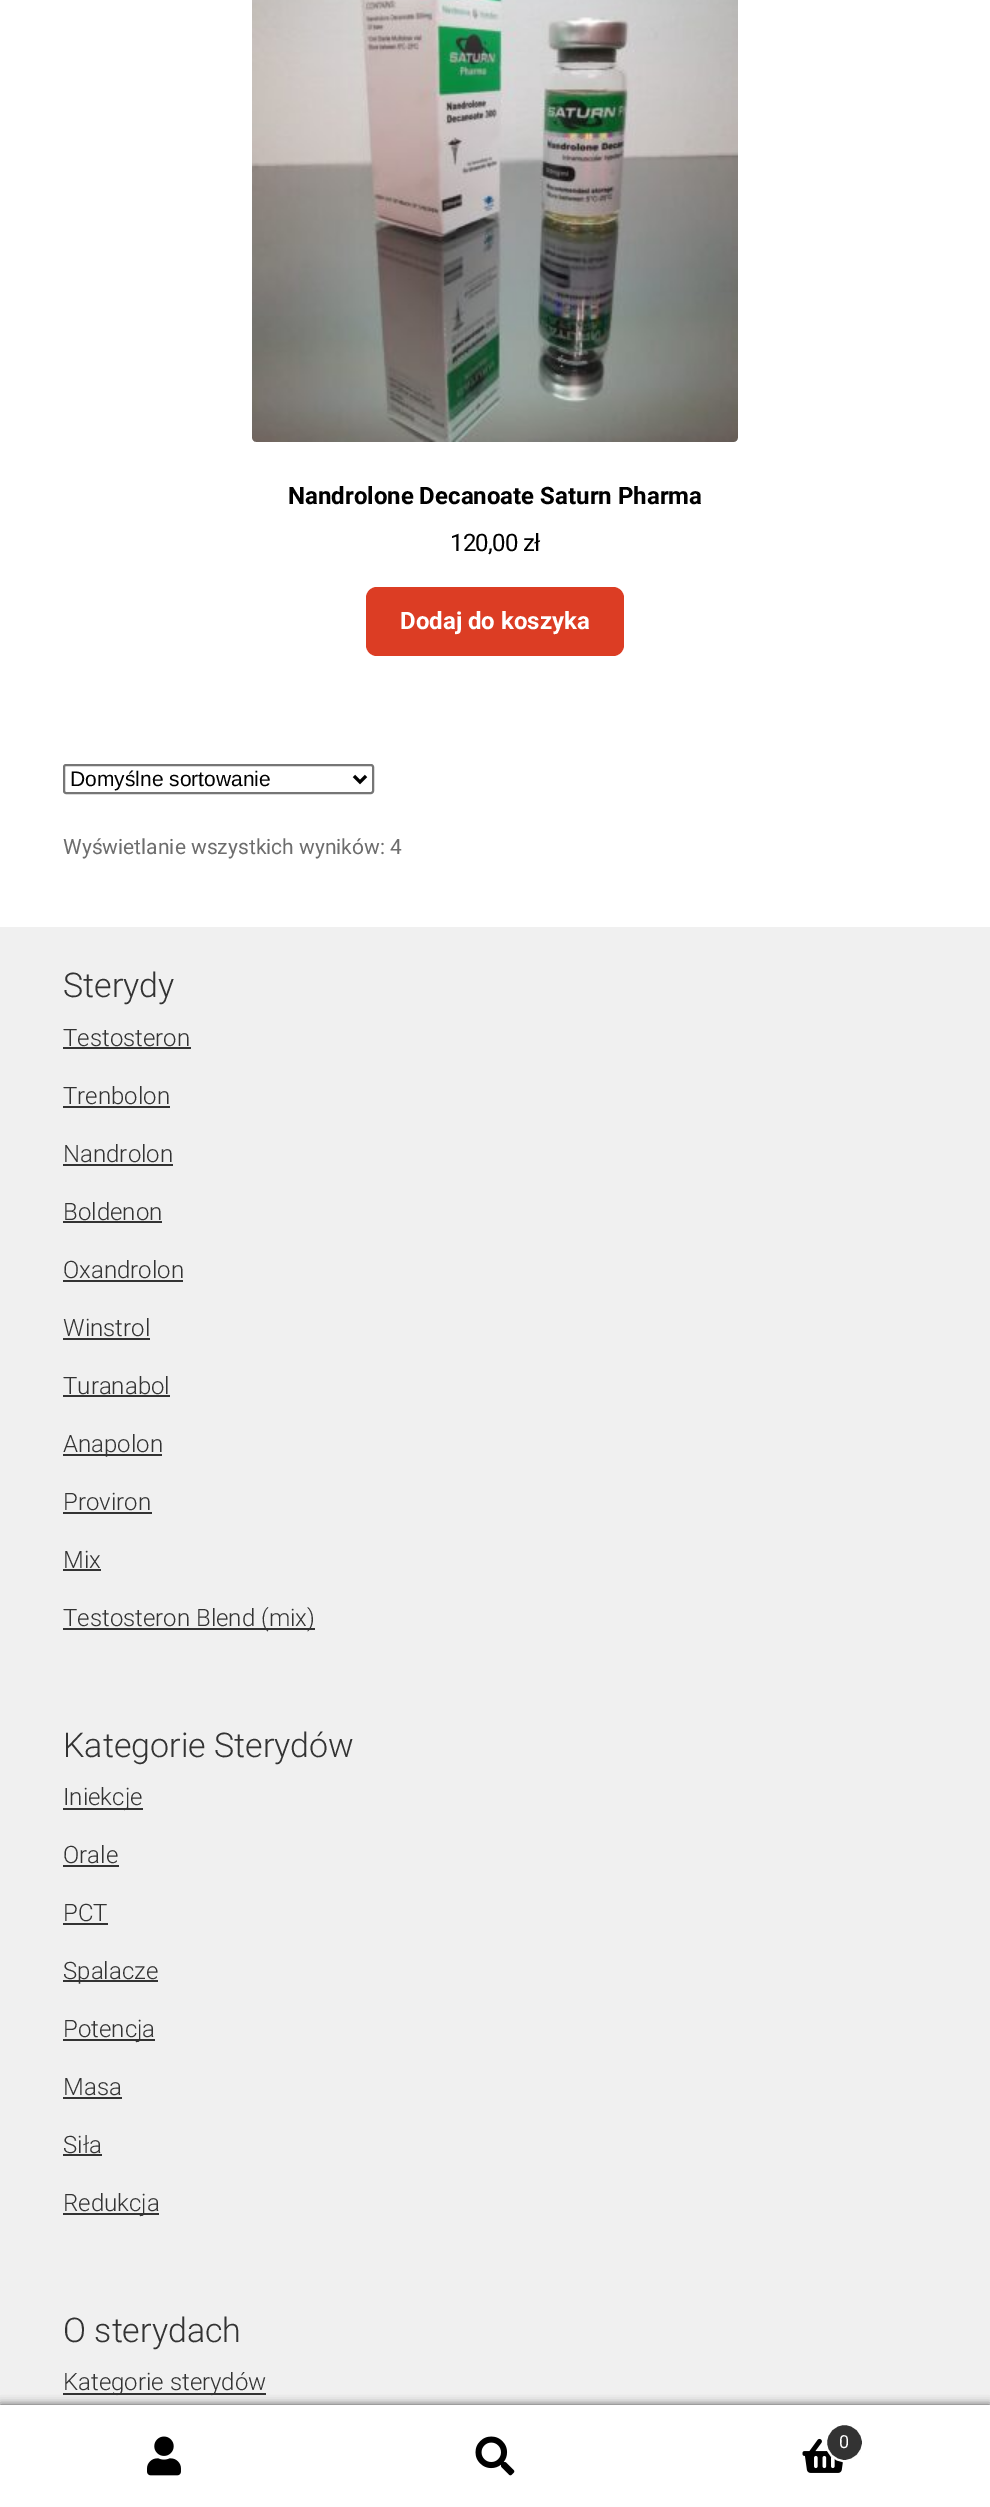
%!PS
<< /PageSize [990 2507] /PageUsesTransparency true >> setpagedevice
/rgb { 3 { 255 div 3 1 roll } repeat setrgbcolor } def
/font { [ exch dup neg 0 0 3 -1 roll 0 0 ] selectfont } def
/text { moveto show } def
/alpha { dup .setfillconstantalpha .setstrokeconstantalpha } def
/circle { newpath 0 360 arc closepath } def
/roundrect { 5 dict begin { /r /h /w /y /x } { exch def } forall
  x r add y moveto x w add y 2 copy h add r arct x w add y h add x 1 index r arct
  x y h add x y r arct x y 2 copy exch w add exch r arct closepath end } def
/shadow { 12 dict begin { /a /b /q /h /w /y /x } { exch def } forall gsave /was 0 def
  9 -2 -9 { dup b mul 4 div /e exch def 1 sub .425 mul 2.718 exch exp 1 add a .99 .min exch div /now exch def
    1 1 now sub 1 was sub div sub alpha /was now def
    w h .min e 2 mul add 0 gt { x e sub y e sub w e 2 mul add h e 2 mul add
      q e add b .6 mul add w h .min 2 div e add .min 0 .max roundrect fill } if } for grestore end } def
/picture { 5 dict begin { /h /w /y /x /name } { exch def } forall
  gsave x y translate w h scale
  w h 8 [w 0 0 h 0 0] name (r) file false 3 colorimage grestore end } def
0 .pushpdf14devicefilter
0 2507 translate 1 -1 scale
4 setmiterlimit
255 255 255 rgb
0 0 990 2507 rectfill
(img_01.rgb) 252 0 486 442 picture
220 61 36 rgb
366 587 258 69 11 roundrect fill
118 118 118 rgb
2 setlinewidth
64 765 309 28 2 roundrect stroke
0 0 0 rgb
3 setlinewidth
354 776 moveto 6 6 rlineto 6 -6 rlineto stroke
240 240 240 rgb
0 927 990 1478 rectfill
51 51 51 rgb
63 1047 128 2 rectfill
63 1106 107 2 rectfill
63 1164 110 2 rectfill
63 1221 99 2 rectfill
63 1280 120 2 rectfill
63 1338 87 2 rectfill
63 1395 107 2 rectfill
63 1454 99 2 rectfill
63 1512 89 2 rectfill
63 1569 38 2 rectfill
63 1628 252 2 rectfill
63 1808 80 2 rectfill
63 1865 56 2 rectfill
63 1923 45 2 rectfill
63 1980 95 2 rectfill
63 2039 92 2 rectfill
63 2097 59 2 rectfill
63 2154 39 2 rectfill
63 2213 96 2 rectfill
63 2393 203 2 rectfill
0 0 0 rgb
0 2405 990 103 0 4.5 0.7 shadow
255 255 255 rgb
0 2405 990 1 rectfill
0 2406 990 101 rectfill
(img_02.rgb) 147 2436 34 40 picture
(img_03.rgb) 475 2436 40 40 picture
(img_04.rgb) 802 2438 41 35 picture
51 51 51 rgb
844.5 2442.5 18.5 circle gsave fill grestore
255 255 255 rgb
2 setlinewidth
stroke
/Roboto-Bold 24 font
0 0 0 rgb
(Nandrolone Decanoate Saturn Pharma) 288 504 text
/Roboto-Regular 24 font
450 551 moveto -0.75 0 (120,00 zł) ashow
/Roboto-Bold 24 font
255 255 255 rgb
(Dodaj do koszyka) 400 629 text
/LiberationSans-Regular 21 font
0 0 0 rgb
(Domyślne sortowanie) 70 786 text
/Roboto-Regular 21 font
109 109 109 rgb
(Wyświetlanie wszystkich wyników: 4) 63 854 text
/Roboto-Light 34 font
51 51 51 rgb
(Sterydy) 63 997 text
/Roboto-Light 24 font
(Testosteron) 63 1046 text
(Trenbolon) 63 1104 text
(Nandrolon) 63 1162 text
(Boldenon) 63 1220 text
(Oxandrolon) 63 1278 text
(Winstrol) 63 1336 text
(Turanabol) 63 1394 text
(Anapolon) 63 1452 text
(Proviron) 63 1510 text
(Mix) 63 1568 text
(Testosteron Blend \(mix\)) 63 1626 text
/Roboto-Light 34 font
(Kategorie Sterydów) 63 1757 text
/Roboto-Light 24 font
(Iniekcje) 63 1805 text
(Orale) 63 1863 text
(PCT) 63 1921 text
(Spalacze) 63 1979 text
(Potencja) 63 2037 text
(Masa) 63 2095 text
(Siła) 63 2153 text
(Redukcja) 63 2211 text
/Roboto-Light 34 font
(O sterydach) 63 2342 text
/Roboto-Light 24 font
(Kategorie sterydów) 63 2390 text
/Roboto-Regular 18 font
255 255 255 rgb
(0) 839 2448 text
.poppdf14devicefilter showpage
